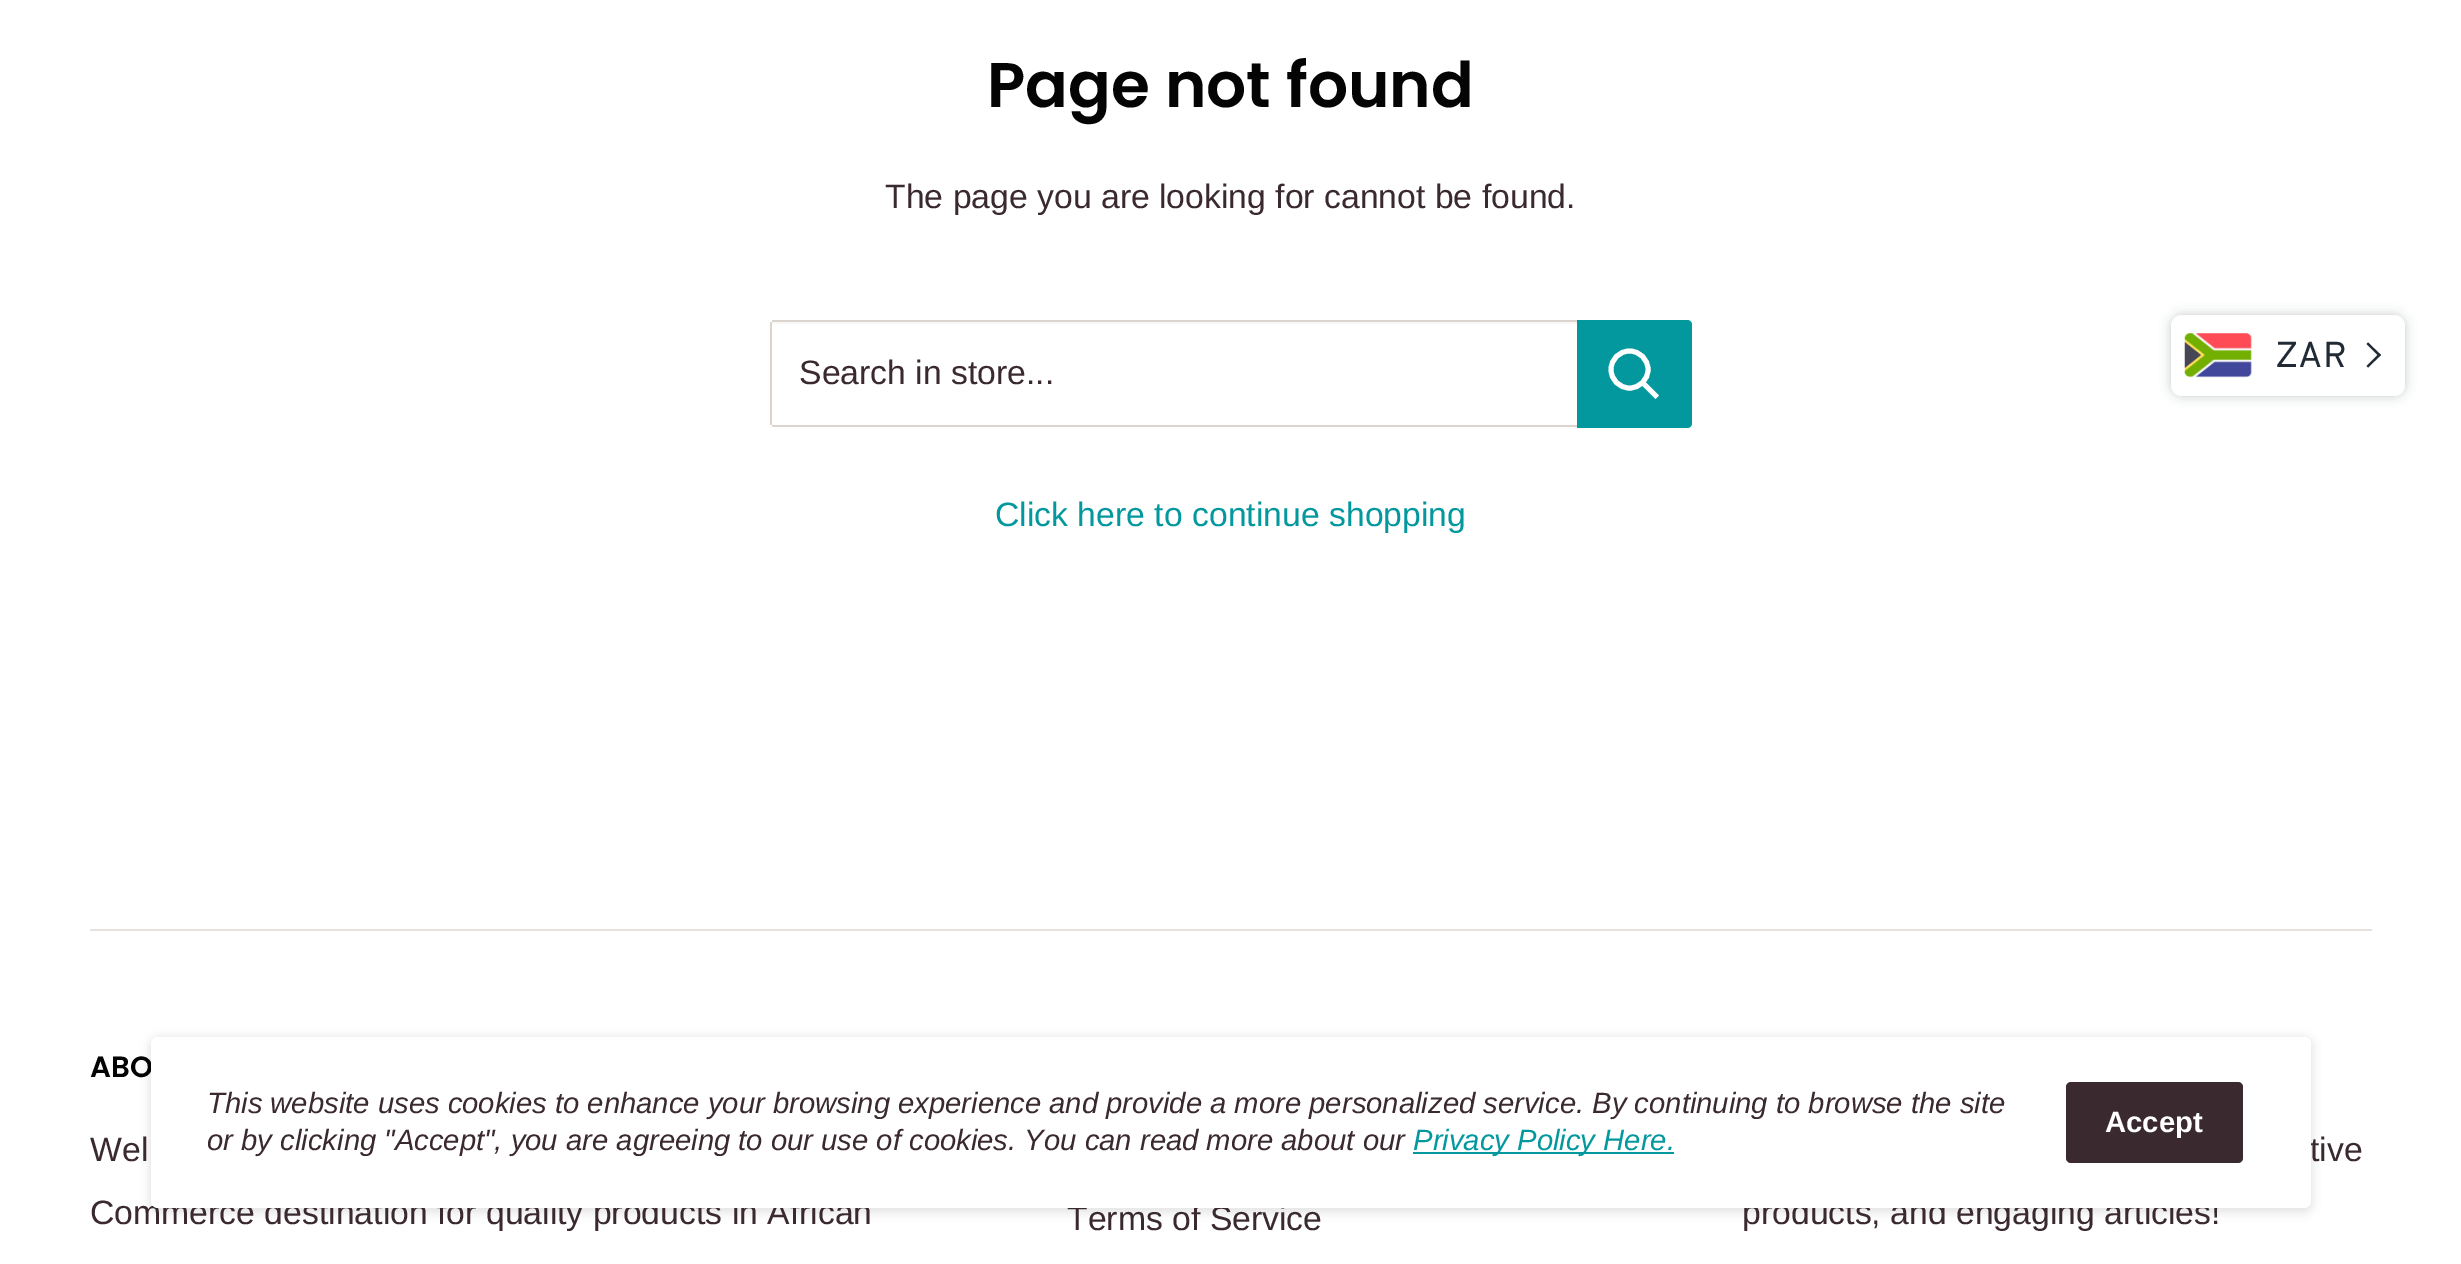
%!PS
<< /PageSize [2461 1264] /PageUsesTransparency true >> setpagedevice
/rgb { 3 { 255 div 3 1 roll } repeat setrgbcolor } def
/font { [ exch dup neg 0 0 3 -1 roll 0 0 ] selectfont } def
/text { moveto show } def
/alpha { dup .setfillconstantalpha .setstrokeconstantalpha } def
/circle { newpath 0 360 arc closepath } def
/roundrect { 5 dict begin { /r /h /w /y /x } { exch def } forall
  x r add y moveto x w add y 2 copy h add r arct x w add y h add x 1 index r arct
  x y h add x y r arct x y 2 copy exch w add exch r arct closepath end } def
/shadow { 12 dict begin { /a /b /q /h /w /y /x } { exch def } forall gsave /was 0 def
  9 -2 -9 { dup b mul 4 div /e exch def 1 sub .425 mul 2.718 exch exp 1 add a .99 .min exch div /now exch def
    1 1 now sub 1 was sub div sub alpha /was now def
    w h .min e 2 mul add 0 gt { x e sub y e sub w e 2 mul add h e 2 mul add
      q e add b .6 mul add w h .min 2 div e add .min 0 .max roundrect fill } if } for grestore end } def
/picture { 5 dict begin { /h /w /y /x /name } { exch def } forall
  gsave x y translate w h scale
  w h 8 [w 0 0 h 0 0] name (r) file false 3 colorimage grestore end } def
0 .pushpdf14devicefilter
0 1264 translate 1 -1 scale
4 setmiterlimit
255 255 255 rgb
0 0 2461 1264 rectfill
249 248 247 rgb
774 324 moveto 803 0 rlineto 0 -2 rlineto -803 0 rlineto -2 1 rlineto 0 3 rlineto 0 -1 1 -2 2 -2 rcurveto closepath fill
220 213 207 rgb
772 320 805 2 rectfill
772 425 805 2 rectfill
770 322 2 103 rectfill
3 152 158 rgb
1577 320 moveto 110 0 rlineto 3 0 5 2 5 5 rcurveto 0 98 rlineto 0 3 -2 5 -5 5 rcurveto -110 0 rlineto closepath fill
255 255 255 rgb
4.9 setlinewidth
2 setlinecap
1655.5 395.5 moveto -12.5 -12.5 rlineto stroke
0 setlinecap
1629.5 369.5 18.5 circle stroke
33 43 54 rgb
2171 315 234 81 11 5.5 0.25 shadow
255 255 255 rgb
2171 315 234 81 11 roundrect fill
(img_01.rgb) 2184 333 68 45 picture
33 43 54 rgb
2366.5 344 moveto 1.5 -1.5 rlineto 13 12.5 rlineto -2 1.5 rlineto closepath fill
2366.5 366 moveto 12.5 -12.5 rlineto 2 1.5 rlineto -13 12.5 rlineto closepath fill
231 226 222 rgb
90 929 2282 2 rectfill
0 0 0 rgb
149 1037 2164 176 9 4.5 0.1 shadow
/Poppins-SemiBold 63 font
4 4 4 rgb
(Page not found) 987 107 text
/LiberationSans-Regular 33.75 font
58 42 47 rgb
(The page you are looking for cannot be found.) 885 208 text
(Search in store...) 799 384 text
3 152 158 rgb
(Click here to continue shopping) 995 526 text
/Overpass-Regular 36 font
33 43 54 rgb
(ZAR) 2275 367 text
/Poppins-SemiBold 29.25 font
4 4 4 rgb
(ABO) 90 1077 text
/LiberationSans-Regular 33.75 font
58 42 47 rgb
(Wel) 90 1161 text
(Commerce destination for quality products in African) 90 1224 text
(Terms of Service) 1067 1230 text
(tive) 2310 1161 text
(products, and engaging articles!) 1742 1224 text
255 255 255 rgb
151 1037 2160 171 7 roundrect fill
/LiberationSans-Italic 29.25 font
58 42 47 rgb
(This website uses cookies to enhance your browsing experience and provide a more personalized service. By continuing to browse the site) 207 1113 text
(or by clicking "Accept", you are agreeing to our use of cookies. You can read more about our) 207 1150 text
3 152 158 rgb
1413 1152 261 2 rectfill
(Privacy Policy Here.) 1413 1150 text
58 42 47 rgb
2066 1082 177 81 5 roundrect fill
/LiberationSans-Bold 29.25 font
255 255 255 rgb
(Accept) 2105 1132 text
.poppdf14devicefilter showpage
